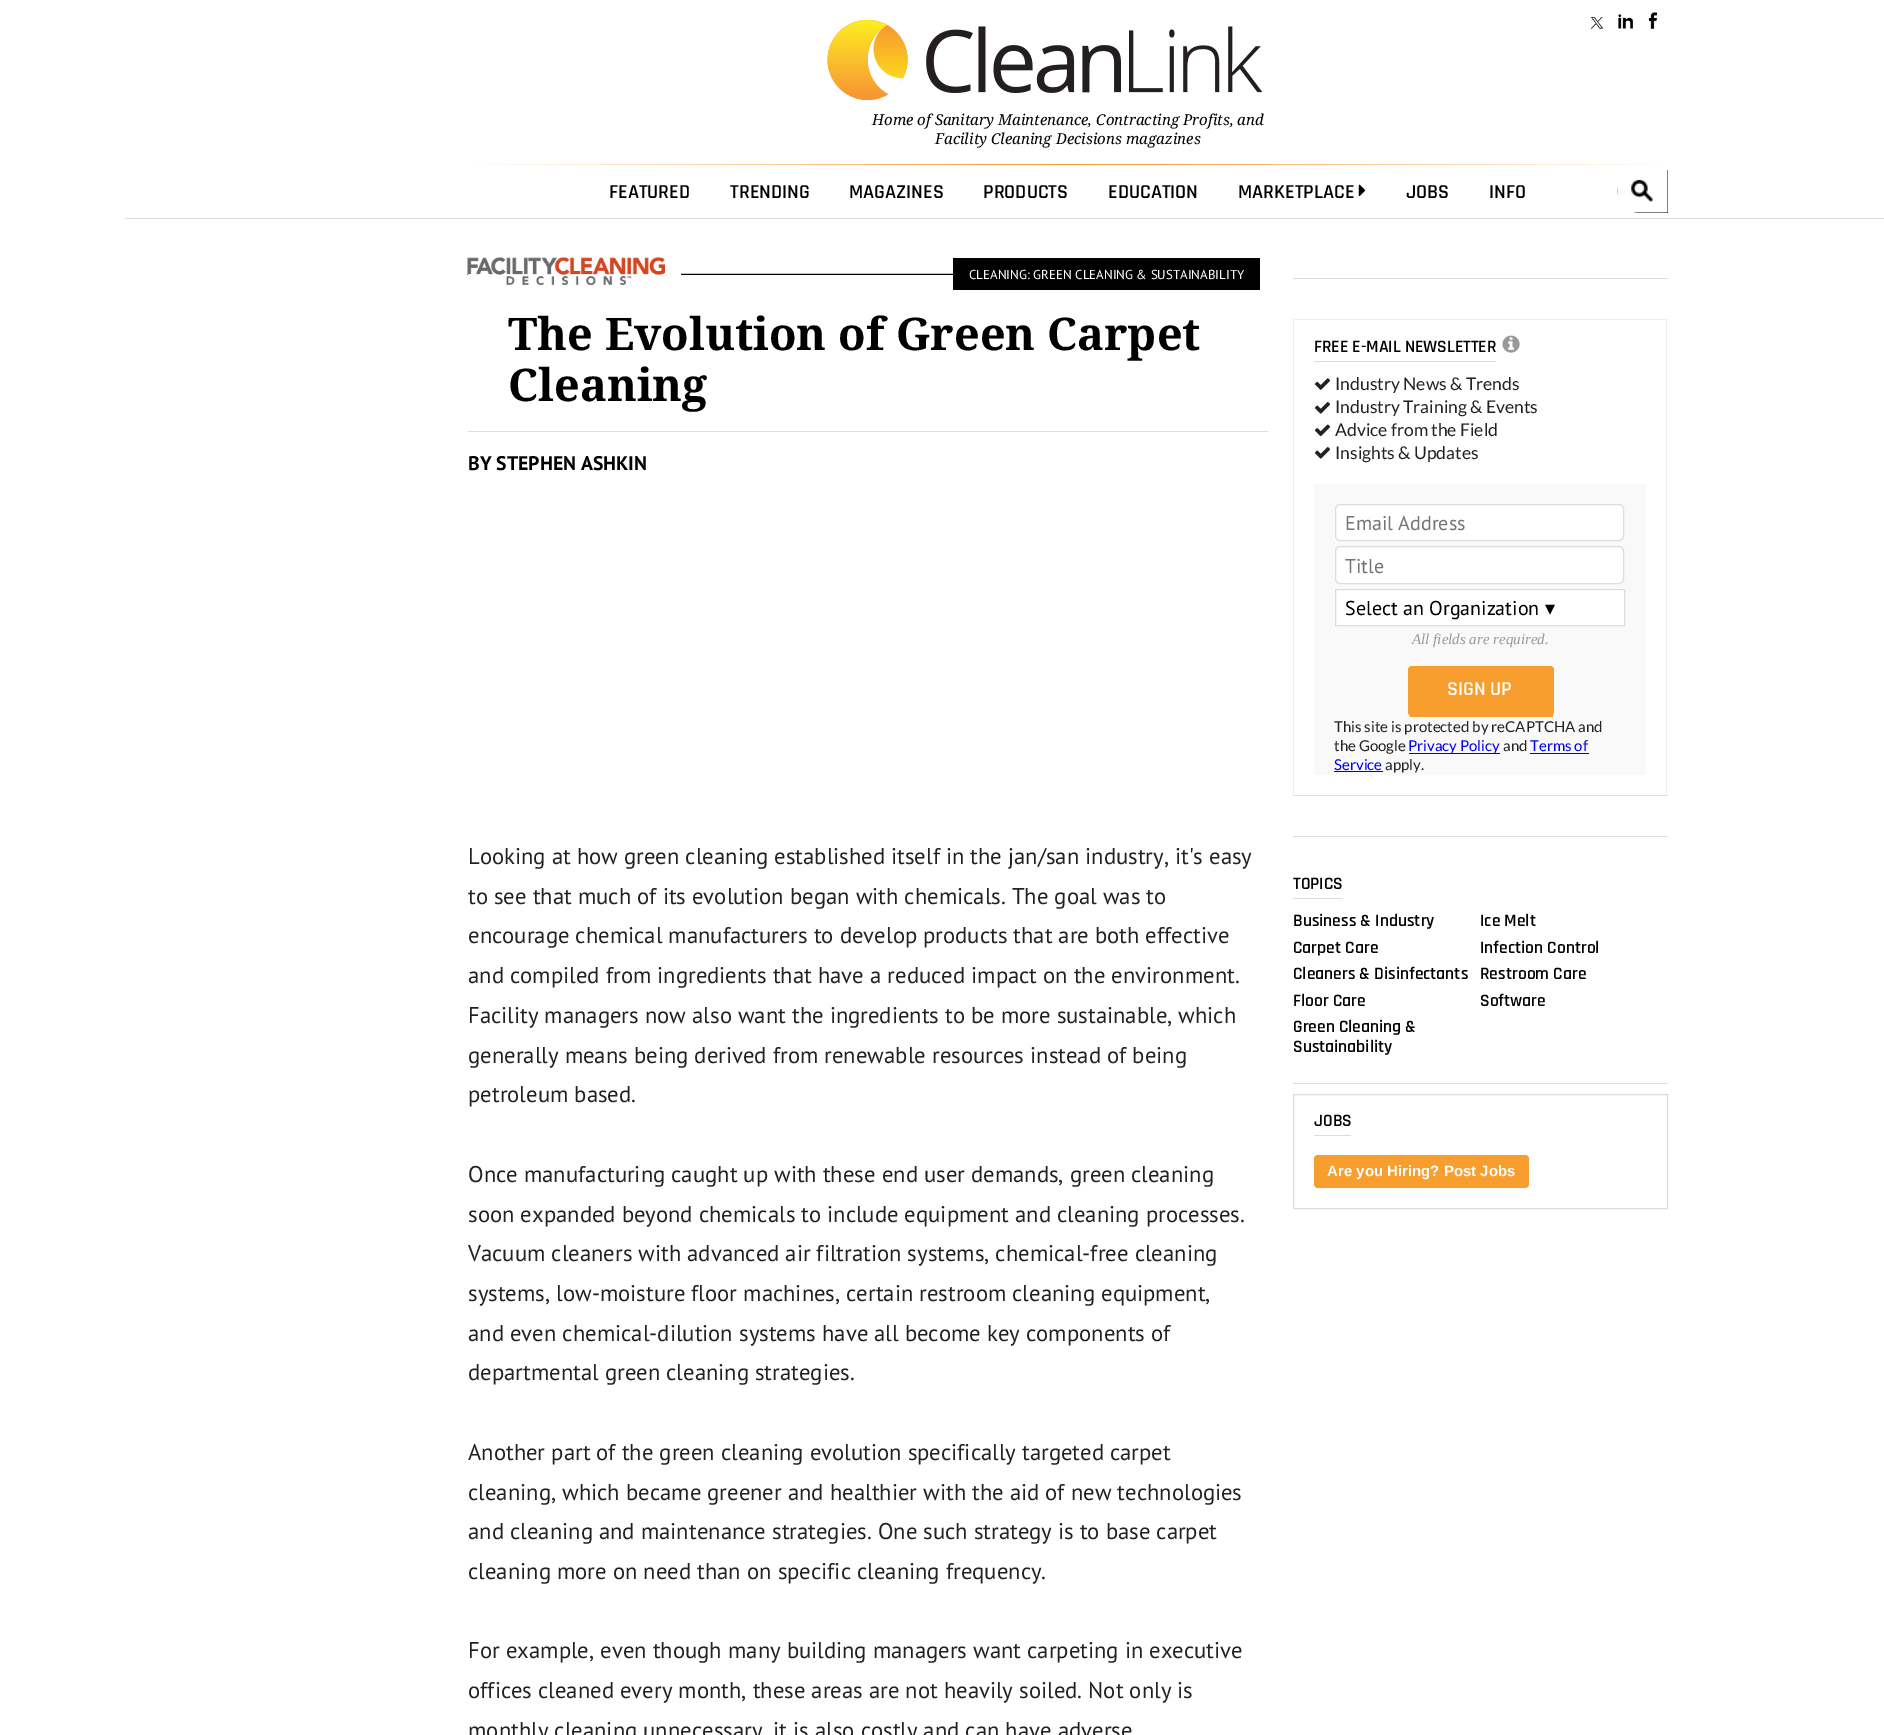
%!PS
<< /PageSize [1884 1735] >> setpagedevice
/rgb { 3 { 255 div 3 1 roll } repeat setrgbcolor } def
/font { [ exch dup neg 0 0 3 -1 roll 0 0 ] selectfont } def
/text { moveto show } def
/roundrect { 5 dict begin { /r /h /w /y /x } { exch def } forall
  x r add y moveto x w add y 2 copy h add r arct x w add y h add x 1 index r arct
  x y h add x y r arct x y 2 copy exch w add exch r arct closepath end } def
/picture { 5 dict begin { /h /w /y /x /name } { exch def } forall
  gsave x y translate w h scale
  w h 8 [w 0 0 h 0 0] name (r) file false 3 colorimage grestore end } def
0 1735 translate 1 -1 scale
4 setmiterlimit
255 255 255 rgb
0 0 1884 1735 rectfill
(img_01.rgb) 1590 17 13 12 picture
(img_02.rgb) 1618 14 15 15 picture
(img_03.rgb) 1648 12 9 17 picture
(img_04.rgb) 827 20 436 80 picture
gsave 468 164 moveto 1200 0 rlineto 0 1 rlineto -1200 0 rlineto closepath clip newpath
<< /ShadingType 2 /ColorSpace /DeviceRGB /Coords [468 164 1668 164] /Extend [true true] /Function << /FunctionType 3 /Domain [0 1] /Functions [<< /FunctionType 2 /Domain [0 1] /C0 [1 1 1] /C1 [0.996 0.945 0.886] /N 1 >> << /FunctionType 2 /Domain [0 1] /C0 [0.996 0.945 0.886] /C1 [0.969 0.596 0.196] /N 1 >> << /FunctionType 2 /Domain [0 1] /C0 [0.969 0.596 0.196] /C1 [1 1 1] /N 1 >>] /Bounds [0.07 0.5] /Encode [0 1 0 1 0 1] >> >> shfill grestore
(img_05.rgb) 1358 184 8 12 picture
0 0 0 rgb
1639.5 170 moveto 28.5 0 rlineto 0 43 rlineto -28.5 0 rlineto -12 0 -21.5 -9.5 -21.5 -21.5 rcurveto 0 -12 9.5 -21.5 21.5 -21.5 rcurveto closepath fill
(img_06.rgb) 1617 170 51 43 picture
(img_07.rgb) 1617 170 51 43 picture
221 221 221 rgb
125 218 1759 1 rectfill
(img_08.rgb) 467 273 486 2 picture
255 255 255 rgb
468 273 213 2 rectfill
(img_09.rgb) 467 257 198 28 picture
0 0 0 rgb
953 258 307 32 rectfill
221 221 221 rgb
468 431 800 1 rectfill
1293 278 375 1 rectfill
238 238 238 rgb
1293 319 375 1 rectfill
1666 319 1 477 rectfill
221 221 221 rgb
1293 795 375 1 rectfill
238 238 238 rgb
1293 319 1 477 rectfill
221 221 221 rgb
1314 361 182 1 rectfill
(img_10.rgb) 1502 335 18 18 picture
(img_11.rgb) 1315 378 15 12 picture
(img_12.rgb) 1315 402 15 12 picture
(img_13.rgb) 1315 424 15 13 picture
(img_12.rgb) 1315 447 15 12 picture
249 249 249 rgb
1314 484 332 291 rectfill
255 255 255 rgb
1335.5 504.5 288 36 4.5 roundrect gsave fill grestore
221 221 221 rgb
stroke
255 255 255 rgb
1335.5 546.5 288 37 4.5 roundrect gsave fill grestore
221 221 221 rgb
stroke
255 255 255 rgb
1335.5 589.5 moveto 289 0 rlineto 0 36 rlineto -289 0 rlineto closepath gsave fill grestore
221 221 221 rgb
stroke
247 158 46 rgb
1408 666 146 50 4 roundrect fill
1410 714 143 3 rectfill
0 0 238 rgb
1409 753 91 1 rectfill
1530 753 59 1 rectfill
1334 771 49 1 rectfill
221 221 221 rgb
1293 836 375 1 rectfill
1293 898 50 1 rectfill
1293 1083 375 1 rectfill
1293.5 1094.5 374 114 rectstroke
1314 1135 37 1 rectfill
247 158 46 rgb
1314 1155 215 33 4 roundrect fill
/DroidSerif-Italic 15 font
0 0 0 rgb
(Home of Sanitary Maintenance, Contracting Profits, and) 872 125 text
(Facility Cleaning Decisions magazines) 935 144 text
/Rajdhani-SemiBold 20 font
(FEATURED) 609 198 text
(TRENDING) 730 198 text
(MAGAZINES) 849 198 text
(PRODUCTS) 983 198 text
(EDUCATION) 1108 198 text
(MARKETPLACE) 1238 198 text
(JOBS) 1406 198 text
(INFO) 1489 198 text
/PTSans-Regular 13 font
255 255 255 rgb
(CLEANING: GREEN CLEANING & SUSTAINABILITY) 969 279 text
/DroidSerif-Bold 45 font
0 0 0 rgb
(The Evolution of Green Carpet) 508 350 text
(Cleaning) 508 401 text
/PTSans-Bold 19.75 font
(BY STEPHEN ASHKIN) 468 470 text
/PTSans-Regular 22.7 font
34 34 34 rgb
(Looking at how green cleaning established itself in the jan/san industry, it's easy) 468 864 text
(to see that much of its evolution began with chemicals. The goal was to) 468 904 text
(encourage chemical manufacturers to develop products that are both effective) 468 943 text
(and compiled from ingredients that have a reduced impact on the environment.) 468 983 text
(Facility managers now also want the ingredients to be more sustainable, which) 468 1023 text
(generally means being derived from renewable resources instead of being) 468 1063 text
(petroleum based.) 468 1102 text
(Once manufacturing caught up with these end user demands, green cleaning) 468 1182 text
(soon expanded beyond chemicals to include equipment and cleaning processes.) 468 1222 text
(Vacuum cleaners with advanced air filtration systems, chemical-free cleaning) 468 1261 text
(systems, low-moisture floor machines, certain restroom cleaning equipment,) 468 1301 text
(and even chemical-dilution systems have all become key components of) 468 1341 text
(departmental green cleaning strategies.) 468 1380 text
(Another part of the green cleaning evolution specifically targeted carpet) 468 1460 text
(cleaning, which became greener and healthier with the aid of new technologies) 468 1500 text
(and cleaning and maintenance strategies. One such strategy is to base carpet) 468 1539 text
(cleaning more on need than on specific cleaning frequency.) 468 1579 text
(For example, even though many building managers want carpeting in executive) 468 1658 text
(offices cleaned every month, these areas are not heavily soiled. Not only is) 468 1698 text
(monthly cleaning unnecessary, it is also costly and can have adverse) 468 1738 text
/Rajdhani-SemiBold 17.5 font
0 0 0 rgb
(FREE E-MAIL NEWSLETTER) 1314 352 text
/Lato-Regular 17.5 font
34 34 34 rgb
(Industry News & Trends) 1335 390 text
(Industry Training & Events) 1335 413 text
(Advice from the Field) 1335 436 text
(Insights & Updates) 1335 459 text
/PTSans-Regular 20 font
117 117 117 rgb
(Email Address) 1345 530 text
(Title) 1345 573 text
0 0 0 rgb
(Select an Organization) 1345 615 text
/DejaVuSans-Regular 20 font
(▾) 1545 615 text
/LiberationSerif-Italic 15 font
153 153 153 rgb
(All fields are required.) 1412 644 text
/Rajdhani-SemiBold 20 font
255 255 255 rgb
(SIGN UP) 1447 695 text
/Lato-Regular 15 font
34 34 34 rgb
(This site is protected by reCAPTCHA and) 1334 732 text
(the Google) 1334 751 text
0 0 238 rgb
(Privacy Policy) 1408 751 text
34 34 34 rgb
(and) 1503 751 text
0 0 238 rgb
(Terms of) 1530 751 text
(Service) 1334 770 text
34 34 34 rgb
(apply.) 1385 770 text
/Rajdhani-SemiBold 17.5 font
0 0 0 rgb
(TOPICS) 1293 889 text
(Business & Industry) 1293 926 text
(Carpet Care) 1293 953 text
(Cleaners & Disinfectants) 1293 979 text
(Floor Care) 1293 1006 text
(Green Cleaning &) 1293 1032 text
(Sustainability) 1293 1052 text
(Ice Melt) 1480 926 text
(Infection Control) 1480 953 text
(Restroom Care) 1480 979 text
(Software) 1480 1006 text
(JOBS) 1314 1126 text
/LiberationSans-Bold 15 font
255 255 255 rgb
(Are you Hiring? Post Jobs) 1327 1176 text
showpage
